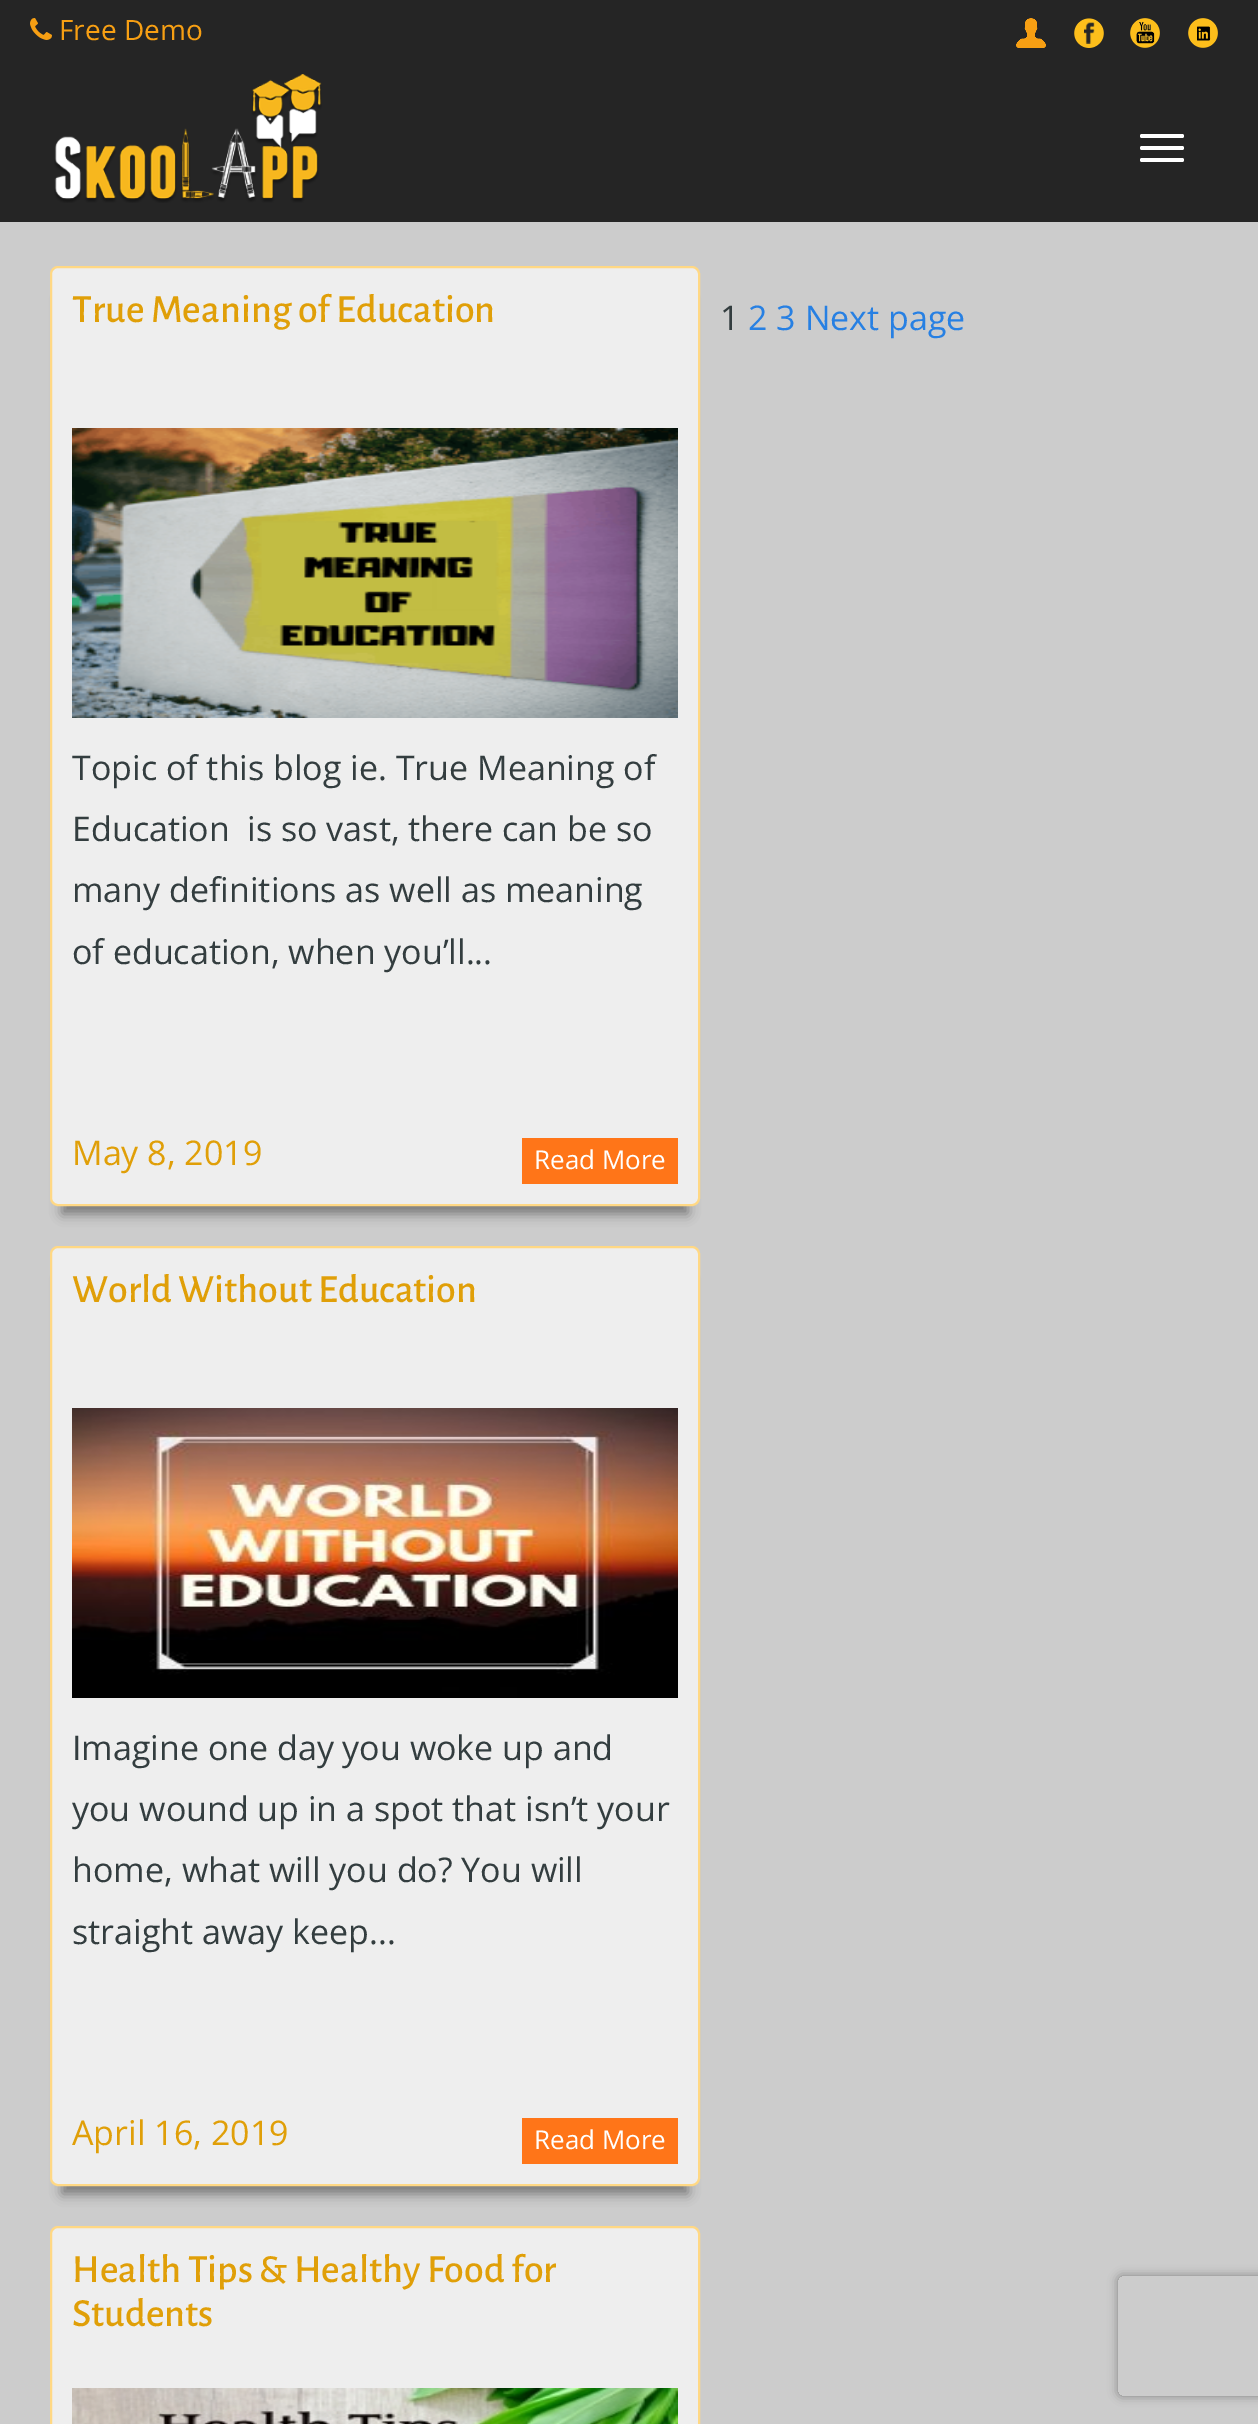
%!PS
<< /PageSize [1258 2424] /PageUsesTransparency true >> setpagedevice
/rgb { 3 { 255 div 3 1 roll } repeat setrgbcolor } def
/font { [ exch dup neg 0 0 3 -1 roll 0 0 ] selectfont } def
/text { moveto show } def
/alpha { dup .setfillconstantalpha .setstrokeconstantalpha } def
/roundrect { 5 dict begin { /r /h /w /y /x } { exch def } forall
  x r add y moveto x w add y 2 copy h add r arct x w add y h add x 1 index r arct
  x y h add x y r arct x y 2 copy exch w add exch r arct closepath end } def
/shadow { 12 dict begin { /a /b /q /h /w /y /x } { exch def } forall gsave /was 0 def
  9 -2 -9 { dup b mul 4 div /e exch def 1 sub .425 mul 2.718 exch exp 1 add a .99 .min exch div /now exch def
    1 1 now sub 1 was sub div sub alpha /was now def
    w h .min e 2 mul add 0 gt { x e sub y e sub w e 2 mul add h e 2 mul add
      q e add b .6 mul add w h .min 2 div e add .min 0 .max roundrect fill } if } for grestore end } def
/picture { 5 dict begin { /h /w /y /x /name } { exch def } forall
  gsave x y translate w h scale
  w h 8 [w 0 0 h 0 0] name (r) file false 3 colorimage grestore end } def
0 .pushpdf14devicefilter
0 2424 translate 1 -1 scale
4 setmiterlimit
204 204 204 rgb
0 0 1258 2424 rectfill
37 37 37 rgb
0 0 1258 222 rectfill
(img_01.rgb) 30 18 22 22 picture
(img_02.rgb) 1016 18 30 30 picture
(img_03.rgb) 1074 18 30 30 picture
(img_04.rgb) 1130 18 30 30 picture
(img_05.rgb) 1188 18 30 30 picture
(img_06.rgb) 54 74 268 129 picture
255 255 255 rgb
1140 134 44 4 2 roundrect fill
1140 146 44 4 2 roundrect fill
1140 158 44 4 2 roundrect fill
119 119 119 rgb
62 298 626 916 0 6 1 shadow
238 238 238 rgb
51 267 648 938 7 roundrect gsave fill grestore
255 216 132 rgb
2 setlinewidth
stroke
(img_07.rgb) 72 428 606 290 picture
255 117 24 rgb
522 1138 156 46 rectfill
119 119 119 rgb
62 1278 626 916 0 6 1 shadow
238 238 238 rgb
51 1247 648 938 7 roundrect gsave fill grestore
255 216 132 rgb
stroke
(img_08.rgb) 72 1408 606 290 picture
255 117 24 rgb
522 2118 156 46 rectfill
238 238 238 rgb
51 2227 648 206 7 roundrect gsave fill grestore
255 216 132 rgb
stroke
(img_09.rgb) 72 2388 606 36 picture
gsave
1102 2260 moveto 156 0 rlineto 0 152 rlineto -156 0 rlineto closepath 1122 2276 moveto 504 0 rlineto 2 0 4 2 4 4 rcurveto 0 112 rlineto 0 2 -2 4 -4 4 rcurveto -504 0 rlineto -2 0 -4 -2 -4 -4 rcurveto 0 -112 rlineto 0 -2 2 -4 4 -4 rcurveto closepath eoclip newpath
128 128 128 rgb
1118 2276 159 120 4 5 1 shadow
grestore
/OpenSans-Regular 28 font
247 159 19 rgb
(Free Demo) 59 40 text
/AlegreyaSans-Medium 40 font
224 159 8 rgb
(True Meaning of Education) 72 322 text
/OpenSans-Regular 34 font
51 61 63 rgb
(Topic of this blog ie. True Meaning of) 72 780 text
(Education  is so vast, there can be so) 72 841 text
(many definitions as well as meaning) 72 902 text
(of education, when you’ll...) 72 964 text
224 159 8 rgb
(May 8, 2019) 72 1165 text
/OpenSans-Regular 26 font
255 255 255 rgb
(Read More) 534 1169 text
/OpenSans-Regular 34 font
51 61 63 rgb
(1) 720 330 text
39 128 227 rgb
(2 3 Next page) 748 330 text
/AlegreyaSans-Medium 40 font
224 159 8 rgb
(World Without Education) 72 1302 text
/OpenSans-Regular 34 font
51 61 63 rgb
(Imagine one day you woke up and) 72 1760 text
(you wound up in a spot that isn’t your) 72 1821 text
(home, what will you do? You will) 72 1882 text
(straight away keep...) 72 1944 text
224 159 8 rgb
(April 16, 2019) 72 2145 text
/OpenSans-Regular 26 font
255 255 255 rgb
(Read More) 534 2149 text
/AlegreyaSans-Medium 40 font
224 159 8 rgb
(Health Tips & Healthy Food for) 72 2282 text
(Students) 72 2326 text
.poppdf14devicefilter showpage
